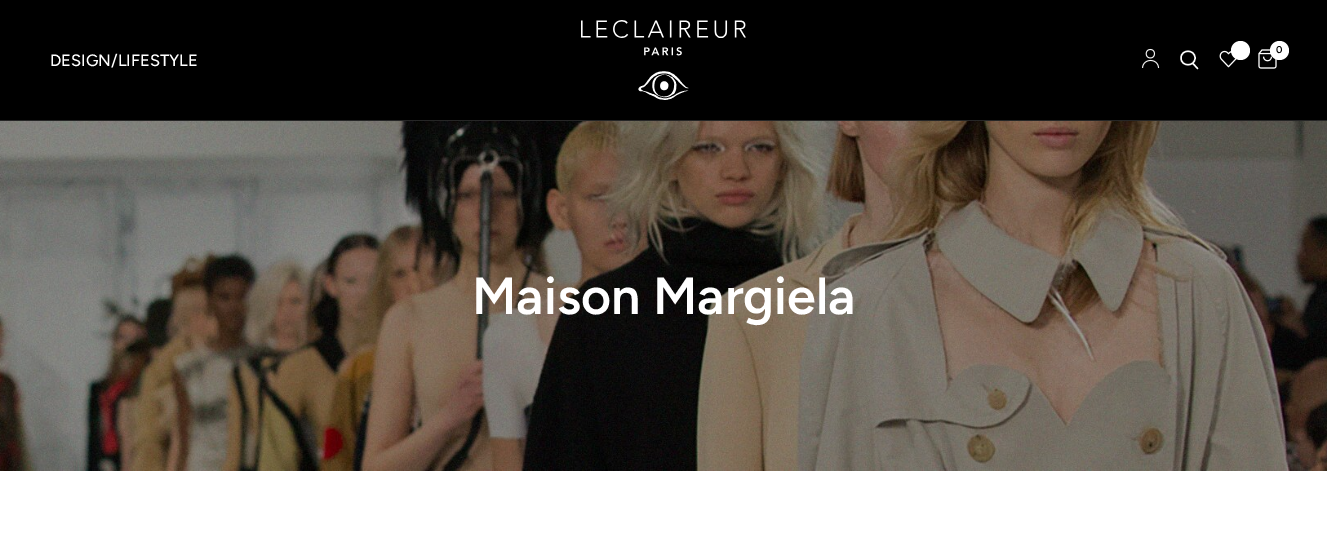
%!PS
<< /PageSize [1327 549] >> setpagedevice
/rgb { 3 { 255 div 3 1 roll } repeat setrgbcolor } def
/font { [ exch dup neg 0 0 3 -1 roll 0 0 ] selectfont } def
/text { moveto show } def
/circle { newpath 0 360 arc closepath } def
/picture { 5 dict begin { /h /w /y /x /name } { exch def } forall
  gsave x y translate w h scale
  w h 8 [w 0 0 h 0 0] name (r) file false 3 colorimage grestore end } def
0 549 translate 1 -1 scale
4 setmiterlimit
255 255 255 rgb
0 0 1327 549 rectfill
0 0 0 rgb
0 0 1327 120 rectfill
38 38 38 rgb
0 120 1327 1 rectfill
(img_01.rgb) 581 20 165 80 picture
(img_02.rgb) 1142 48 18 21 picture
255 255 255 rgb
1.4 setlinewidth
1 setlinecap
1 setlinejoin
1193 63.5 moveto 4.5 5 rlineto 1195 58 moveto 0 9 -14 9 -14 0 rcurveto 0 -9 14 -9 14 0 rcurveto closepath stroke
(img_03.rgb) 1219 50 18 18 picture
1240.5 50.5 9.5 circle fill
(img_04.rgb) 1258 49 19 20 picture
1279.5 50.5 9.5 circle fill
(img_05.rgb) 0 121 1327 350 picture
/Figtree-SemiBold 10 font
0 0 0 rgb
(0) 1276 53 text
/Figtree-Medium 16.5 font
255 255 255 rgb
(DESIGN/LIFESTYLE) 50 66 text
/Figtree-SemiBold 52 font
(Maison Margiela) 472 314 text
showpage
